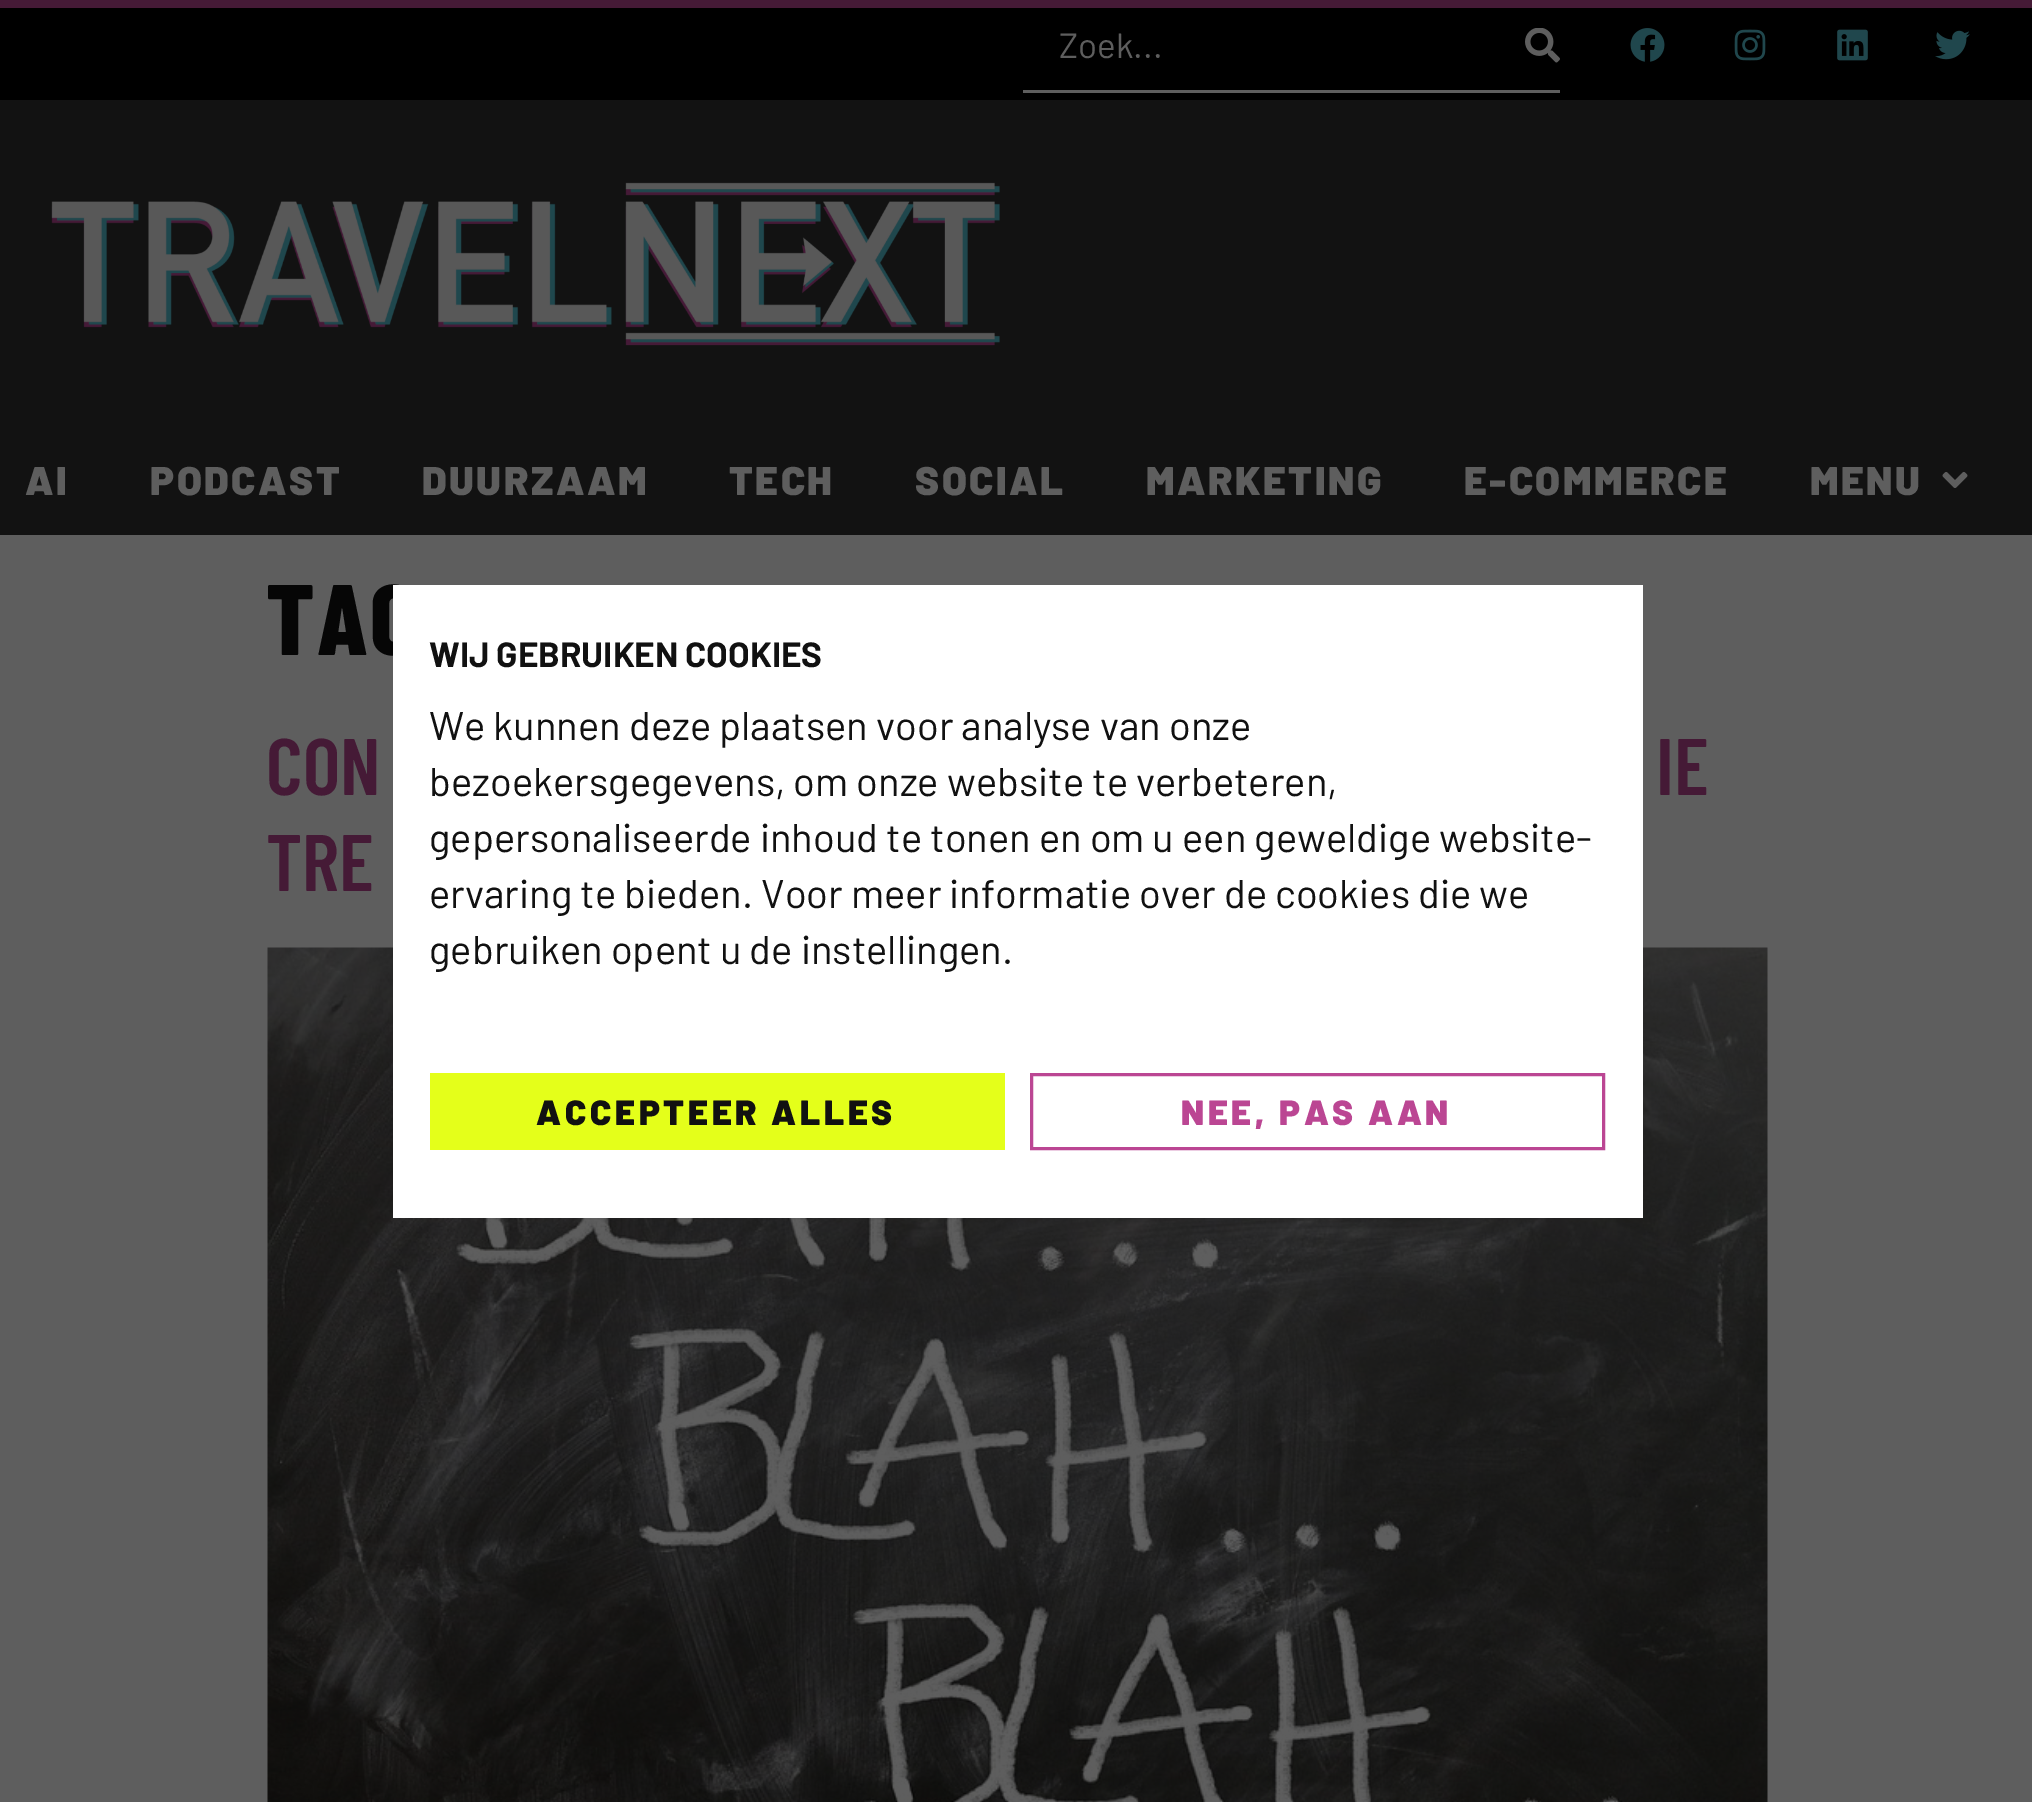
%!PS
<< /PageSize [2032 1802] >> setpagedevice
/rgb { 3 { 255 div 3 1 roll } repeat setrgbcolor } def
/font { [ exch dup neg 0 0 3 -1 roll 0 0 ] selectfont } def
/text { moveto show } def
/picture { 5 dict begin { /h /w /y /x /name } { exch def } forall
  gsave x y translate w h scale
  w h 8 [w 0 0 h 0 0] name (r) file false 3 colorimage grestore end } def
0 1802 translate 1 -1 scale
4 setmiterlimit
94 94 94 rgb
0 0 2032 1802 rectfill
0 0 0 rgb
0 8 2032 92 rectfill
69 26 54 rgb
0 0 2032 8 rectfill
94 94 94 rgb
1023 90 537 3 rectfill
(img_01.rgb) 1525 28 35 35 picture
(img_02.rgb) 1630 28 35 34 picture
(img_03.rgb) 1734 29 32 32 picture
(img_04.rgb) 1837 29 31 32 picture
(img_05.rgb) 1935 30 35 30 picture
18 18 18 rgb
0 100 2032 435 rectfill
(img_06.rgb) 51 182 949 164 picture
(img_07.rgb) 1942 471 26 17 picture
(img_08.rgb) 267 947 1501 855 picture
/Barlow-Regular 35 font
94 94 94 rgb
(Zoek...) 1059 58 text
/Barlow-Black 40 font
25 495 moveto 2.5 0 (AI) ashow
150 495 moveto 2.5 0 (PODCAST) ashow
422 495 moveto 2.5 0 (DUURZAAM) ashow
729 495 moveto 2.5 0 (TECH) ashow
915 495 moveto 2.5 0 (SOCIAL) ashow
1146 495 moveto 2.5 0 (MARKETING) ashow
1464 495 moveto 2.5 0 (E-COMMERCE) ashow
1810 495 moveto 2.5 0 (MENU) ashow
/BarlowCondensed-ExtraBold 100 font
6 6 6 rgb
266 655 moveto 2.5 0 (TAG) ashow
/BarlowCondensed-SemiBold 80 font
69 26 54 rgb
(CON) 266 795 text
(IE) 1656 795 text
(TRE) 266 891 text
255 255 255 rgb
393 585 1250 633 rectfill
/Barlow-Bold 35 font
17 17 17 rgb
(WIJ GEBRUIKEN COOKIES) 429 667 text
/Barlow-Regular 40 font
(We kunnen deze plaatsen voor analyse van onze) 429 740 text
(bezoekersgegevens, om onze website te verbeteren,) 429 796 text
(gepersonaliseerde inhoud te tonen en om u een geweldige website-) 429 852 text
(ervaring te bieden. Voor meer informatie over de cookies die we) 429 908 text
(gebruiken opent u de instellingen.) 429 964 text
228 255 26 rgb
430 1073 575 77 rectfill
/Barlow-Black 35 font
17 17 17 rgb
536 1125 moveto 3.75 0 (ACCEPTEER ALLES) ashow
187 70 147 rgb
3 setlinewidth
1031.5 1074.5 572 74 rectstroke
1181 1125 moveto 3.75 0 (NEE, PAS AAN) ashow
showpage
